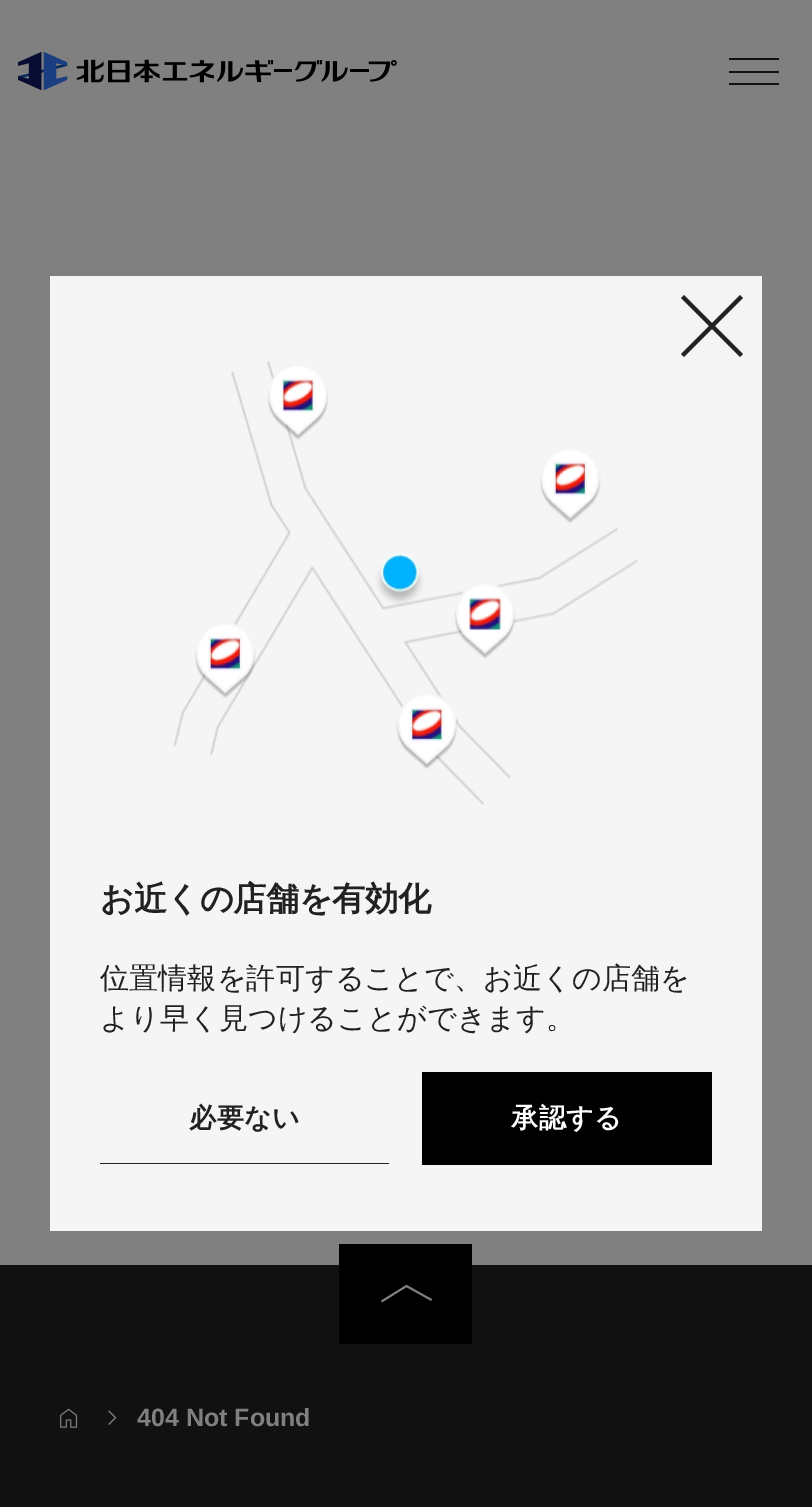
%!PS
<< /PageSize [812 1507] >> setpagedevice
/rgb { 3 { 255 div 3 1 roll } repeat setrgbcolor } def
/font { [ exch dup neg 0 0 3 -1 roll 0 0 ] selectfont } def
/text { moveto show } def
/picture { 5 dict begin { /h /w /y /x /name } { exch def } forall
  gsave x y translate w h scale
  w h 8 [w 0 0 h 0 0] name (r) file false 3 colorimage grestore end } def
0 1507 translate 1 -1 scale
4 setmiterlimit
128 128 128 rgb
0 0 812 1507 rectfill
(img_01.rgb) 18 51 379 40 picture
17 17 17 rgb
729 58 50 2 rectfill
729 71 50 2 rectfill
729 83 50 2 rectfill
245 245 245 rgb
50 276 712 955 rectfill
33 33 33 rgb
743 298 moveto -28 28 rlineto 28 28 rlineto -3 3 rlineto -28 -28 rlineto -28 28 rlineto -3 -3 rlineto 28 -28 rlineto -28 -28 rlineto 3 -3 rlineto 28 28 rlineto 28 -28 rlineto closepath fill
(img_02.rgb) 173 360 465 445 picture
100 1163 289 1 rectfill
0 0 0 rgb
422 1072 290 93 rectfill
17 17 17 rgb
0 1265 812 242 rectfill
0 0 0 rgb
339 1244 133 100 rectfill
128 128 128 rgb
1.9 setlinewidth
381.5 1301.5 moveto 25 -15.5 rlineto 25 14 rlineto stroke
(img_03.rgb) 60 1408 18 20 picture
(img_04.rgb) 108 1410 9 15 picture
/WenQuanYiZenHei-Bold 33.25 font
33 33 33 rgb
100 910 moveto -0.5 0 (お近くの店舗を有効化) ashow
/WenQuanYiZenHei-Medium 29.15 font
(位置情報を許可することで、お近くの店舗を) 100 988 text
(より早く見つけることができます。) 100 1028 text
/WenQuanYiZenHei-Bold 27 font
189 1127 moveto 0.5 0 (必要ない) ashow
255 255 255 rgb
511 1127 moveto 0.5 0 (承認する) ashow
/LiberationSans-Bold 25 font
128 128 128 rgb
(404 Not Found) 137 1426 text
showpage
